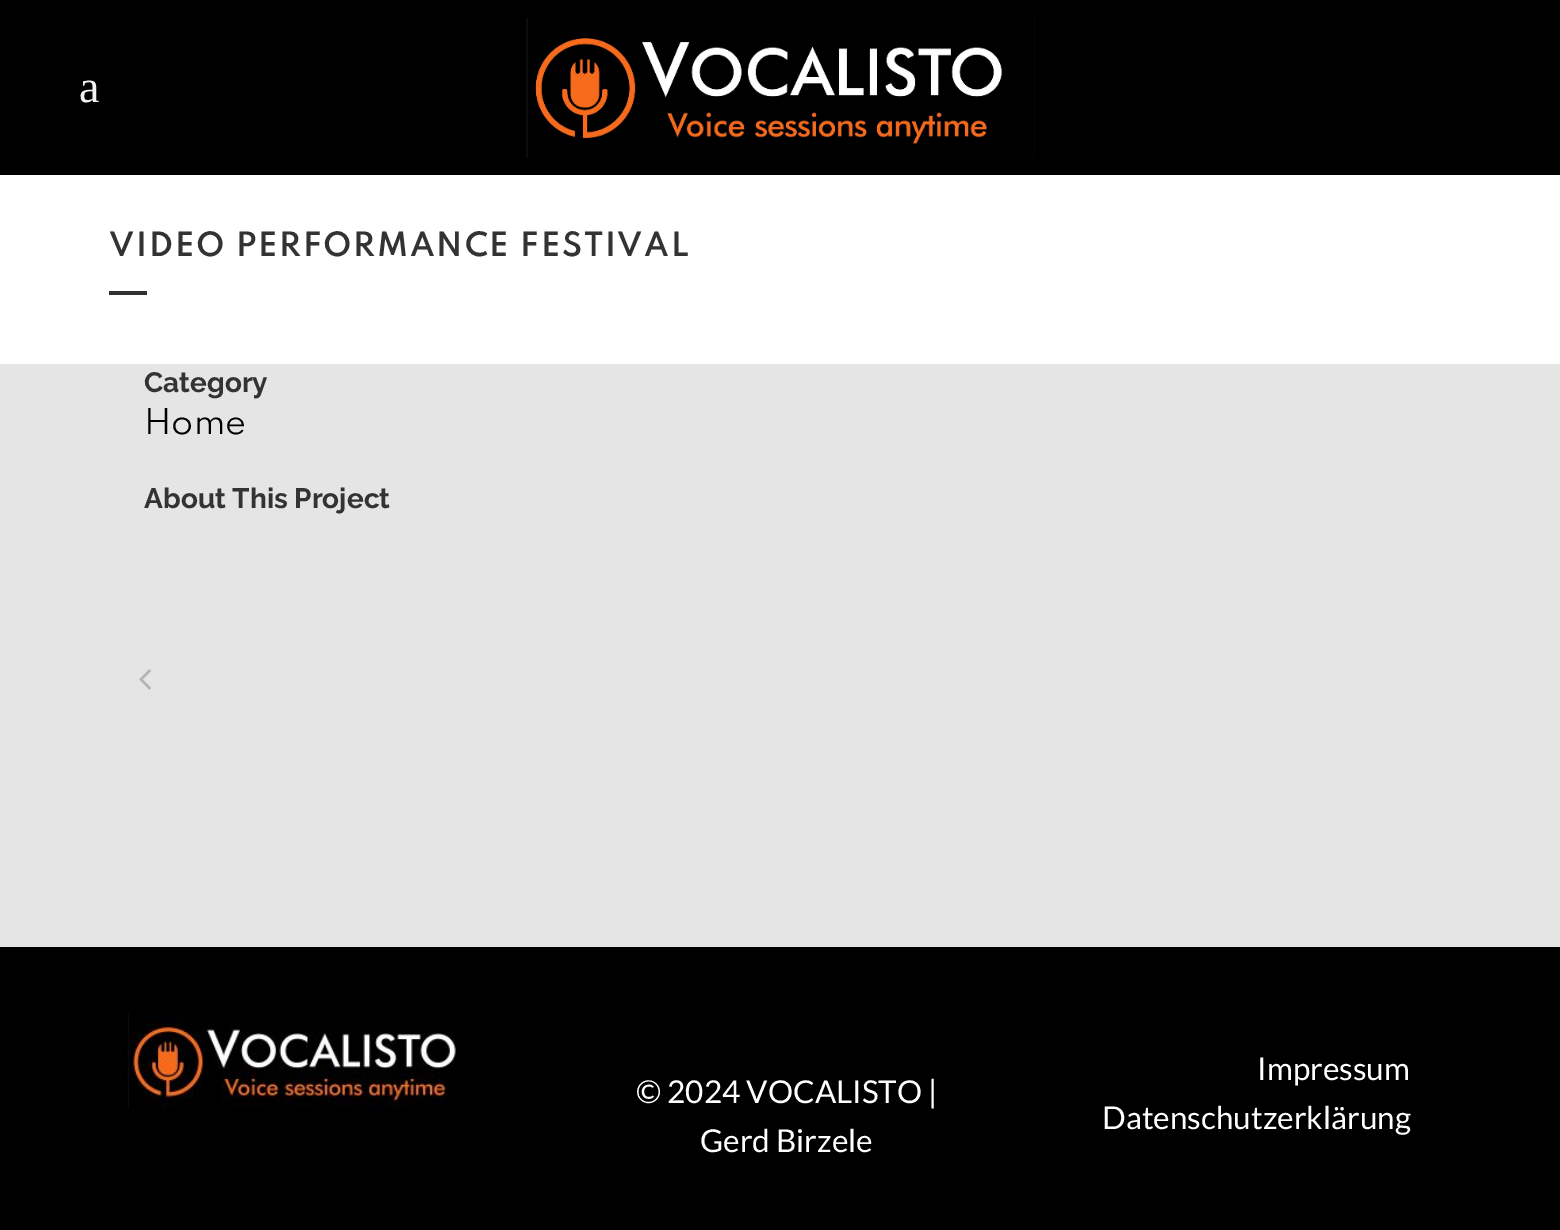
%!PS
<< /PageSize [1560 1230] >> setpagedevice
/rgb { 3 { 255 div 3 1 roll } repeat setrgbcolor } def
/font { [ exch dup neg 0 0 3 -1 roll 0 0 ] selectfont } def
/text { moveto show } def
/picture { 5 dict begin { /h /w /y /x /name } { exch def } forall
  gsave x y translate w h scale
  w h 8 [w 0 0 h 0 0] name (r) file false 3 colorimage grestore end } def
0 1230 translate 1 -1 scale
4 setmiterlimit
229 229 229 rgb
0 0 1560 1230 rectfill
0 0 0 rgb
0 0 1560 175 rectfill
(img_01.rgb) 526 18 509 140 picture
255 255 255 rgb
0 175 1560 189 rectfill
48 48 48 rgb
109 291 38 4 rectfill
(img_02.rgb) 139 669 12 21 picture
0 0 0 rgb
0 947 1560 283 rectfill
(img_03.rgb) 127 1013 331 97 picture
/LiberationSerif-Regular 46 font
242 242 242 rgb
(a) 79 102 text
/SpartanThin-SemiBold 29.75 font
51 51 51 rgb
109 256 moveto 1.75 0 (VIDEO PERFORMANCE FESTIVAL) ashow
/Raleway-Bold 28 font
(Category) 144 392 text
/SpartanThin-Regular 31.5 font
0 0 0 rgb
(Home) 144 434 text
/Raleway-Bold 28 font
51 51 51 rgb
(About This Project) 144 508 text
/Lato-Regular 31.5 font
255 255 255 rgb
(© 2024 VOCALISTO |) 636 1103 text
(Gerd Birzele) 700 1152 text
(Impressum) 1257 1080 text
(Datenschutzerklärung) 1102 1129 text
showpage
